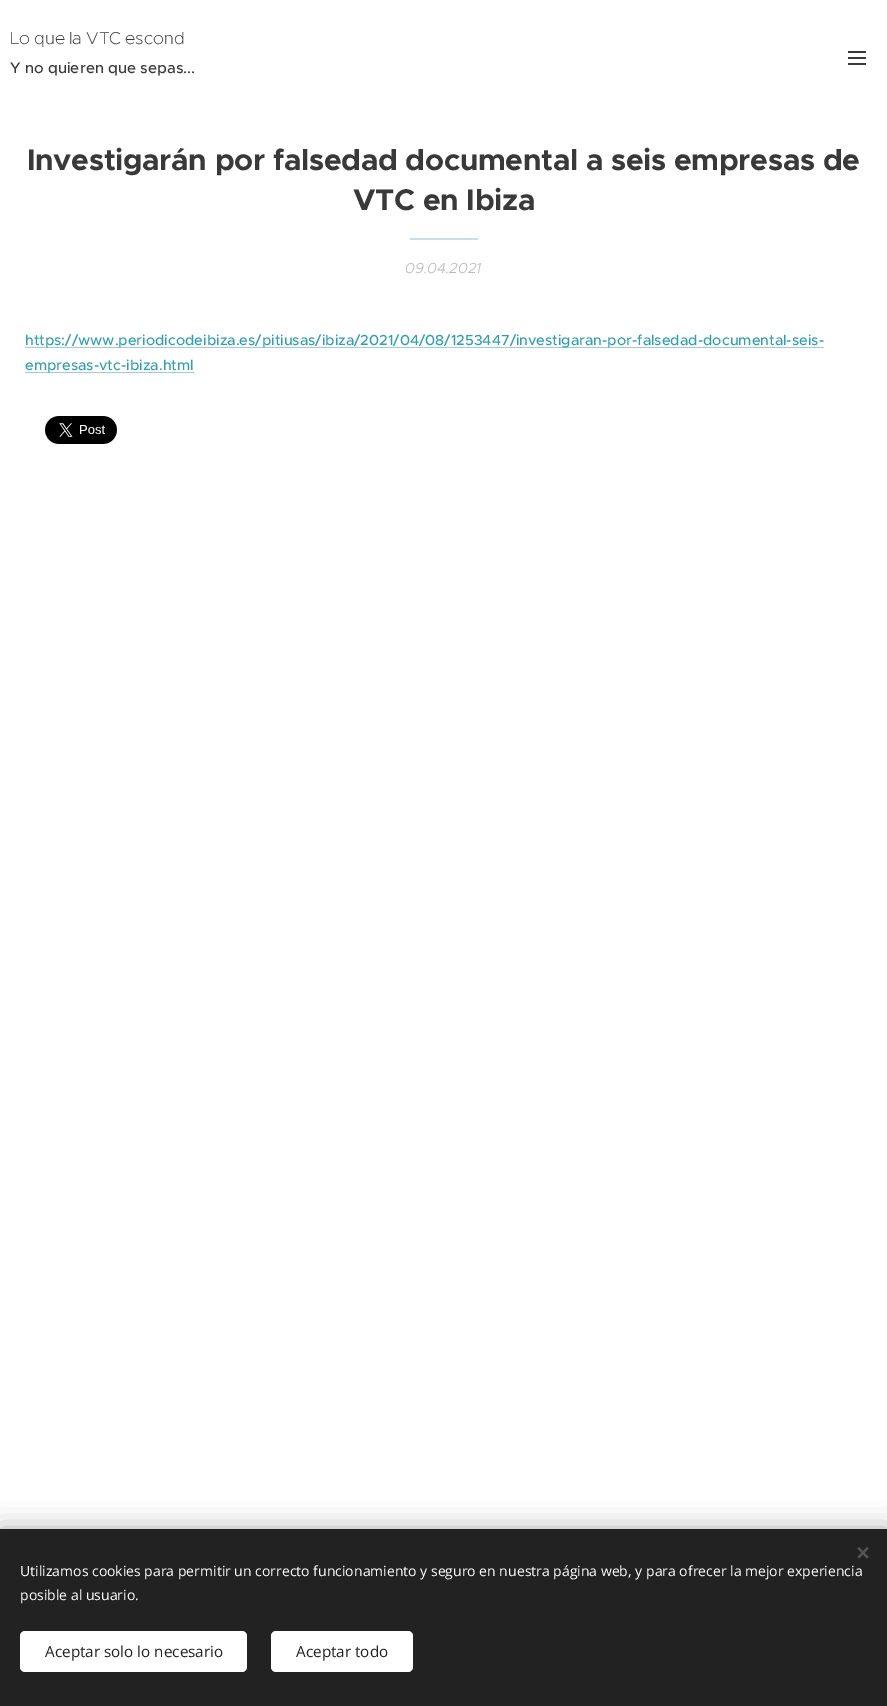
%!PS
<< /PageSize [887 1706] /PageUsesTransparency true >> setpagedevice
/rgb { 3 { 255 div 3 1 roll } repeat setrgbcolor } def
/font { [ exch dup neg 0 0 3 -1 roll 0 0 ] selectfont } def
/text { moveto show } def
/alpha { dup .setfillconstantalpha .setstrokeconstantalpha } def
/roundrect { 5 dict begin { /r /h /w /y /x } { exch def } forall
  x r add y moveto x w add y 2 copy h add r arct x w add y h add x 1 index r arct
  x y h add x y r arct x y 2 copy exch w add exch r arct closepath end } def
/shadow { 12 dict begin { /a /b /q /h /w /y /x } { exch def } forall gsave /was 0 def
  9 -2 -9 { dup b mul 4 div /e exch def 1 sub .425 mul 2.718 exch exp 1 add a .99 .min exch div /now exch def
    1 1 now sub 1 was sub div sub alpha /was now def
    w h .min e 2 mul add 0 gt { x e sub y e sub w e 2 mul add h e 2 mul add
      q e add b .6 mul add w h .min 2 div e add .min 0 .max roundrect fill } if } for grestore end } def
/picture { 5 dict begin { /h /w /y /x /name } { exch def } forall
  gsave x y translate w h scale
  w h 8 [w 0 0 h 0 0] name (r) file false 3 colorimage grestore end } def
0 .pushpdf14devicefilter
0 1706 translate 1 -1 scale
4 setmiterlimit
255 255 255 rgb
0 0 887 1706 rectfill
57 57 57 rgb
848 57 18 2 rectfill
848 51 18 2 rectfill
848 63 18 2 rectfill
192 227 232 rgb
410 238 68 2 rectfill
151 208 216 rgb
25 347 799 1 rectfill
25 372 169 1 rectfill
(img_01.rgb) 45 416 72 28 picture
0 0 0 rgb
0 1529 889 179 0 12.5 0.33 shadow
34 34 34 rgb
0 1529 887 177 rectfill
85 85 85 rgb
857.5 1557 moveto 9.5 -10 rlineto 1.5 1.5 rlineto -9.5 10 rlineto closepath fill
859 1547 moveto 9.5 10 rlineto -1.5 1.5 rlineto -9.5 -10 rlineto closepath fill
255 255 255 rgb
20 1631 227 41 5 roundrect fill
271 1631 142 41 5 roundrect fill
/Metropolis-ExtraLight 17.25 font
57 57 57 rgb
10 44 moveto -1 0 32 (Lo que la VTC escond) widthshow
/Metropolis-Medium 15.25 font
(Y no quieren que sepas...) 10 73 text
/Metropolis-Bold 30 font
27 170 moveto -0.3 0 (Investigarán por falsedad documental a seis empresas de) ashow
353 210 moveto -0.3 0 (VTC en Ibiza) ashow
/Metropolis-LightItalic 14.6 font
186 186 186 rgb
(09.04.2021) 405 273 text
/Metropolis-Medium 14.6 font
46 161 177 rgb
(https://www.periodicodeibiza.es/pitiusas/ibiza/2021/04/08/1253447/investigaran-por-falsedad-documental-seis-) 25 345 text
(empresas-vtc-ibiza.html) 25 370 text
/OpenSans-Regular 14 font
255 255 255 rgb
(Utilizamos cookies para permitir un correcto funcionamiento y seguro en nuestra página web, y para ofrecer la mejor experiencia) 20 1576 text
(posible al usuario.) 20 1600 text
/OpenSans-Regular 15.25 font
34 34 34 rgb
(Aceptar solo lo necesario) 45 1657 text
(Aceptar todo) 296 1657 text
.poppdf14devicefilter showpage
